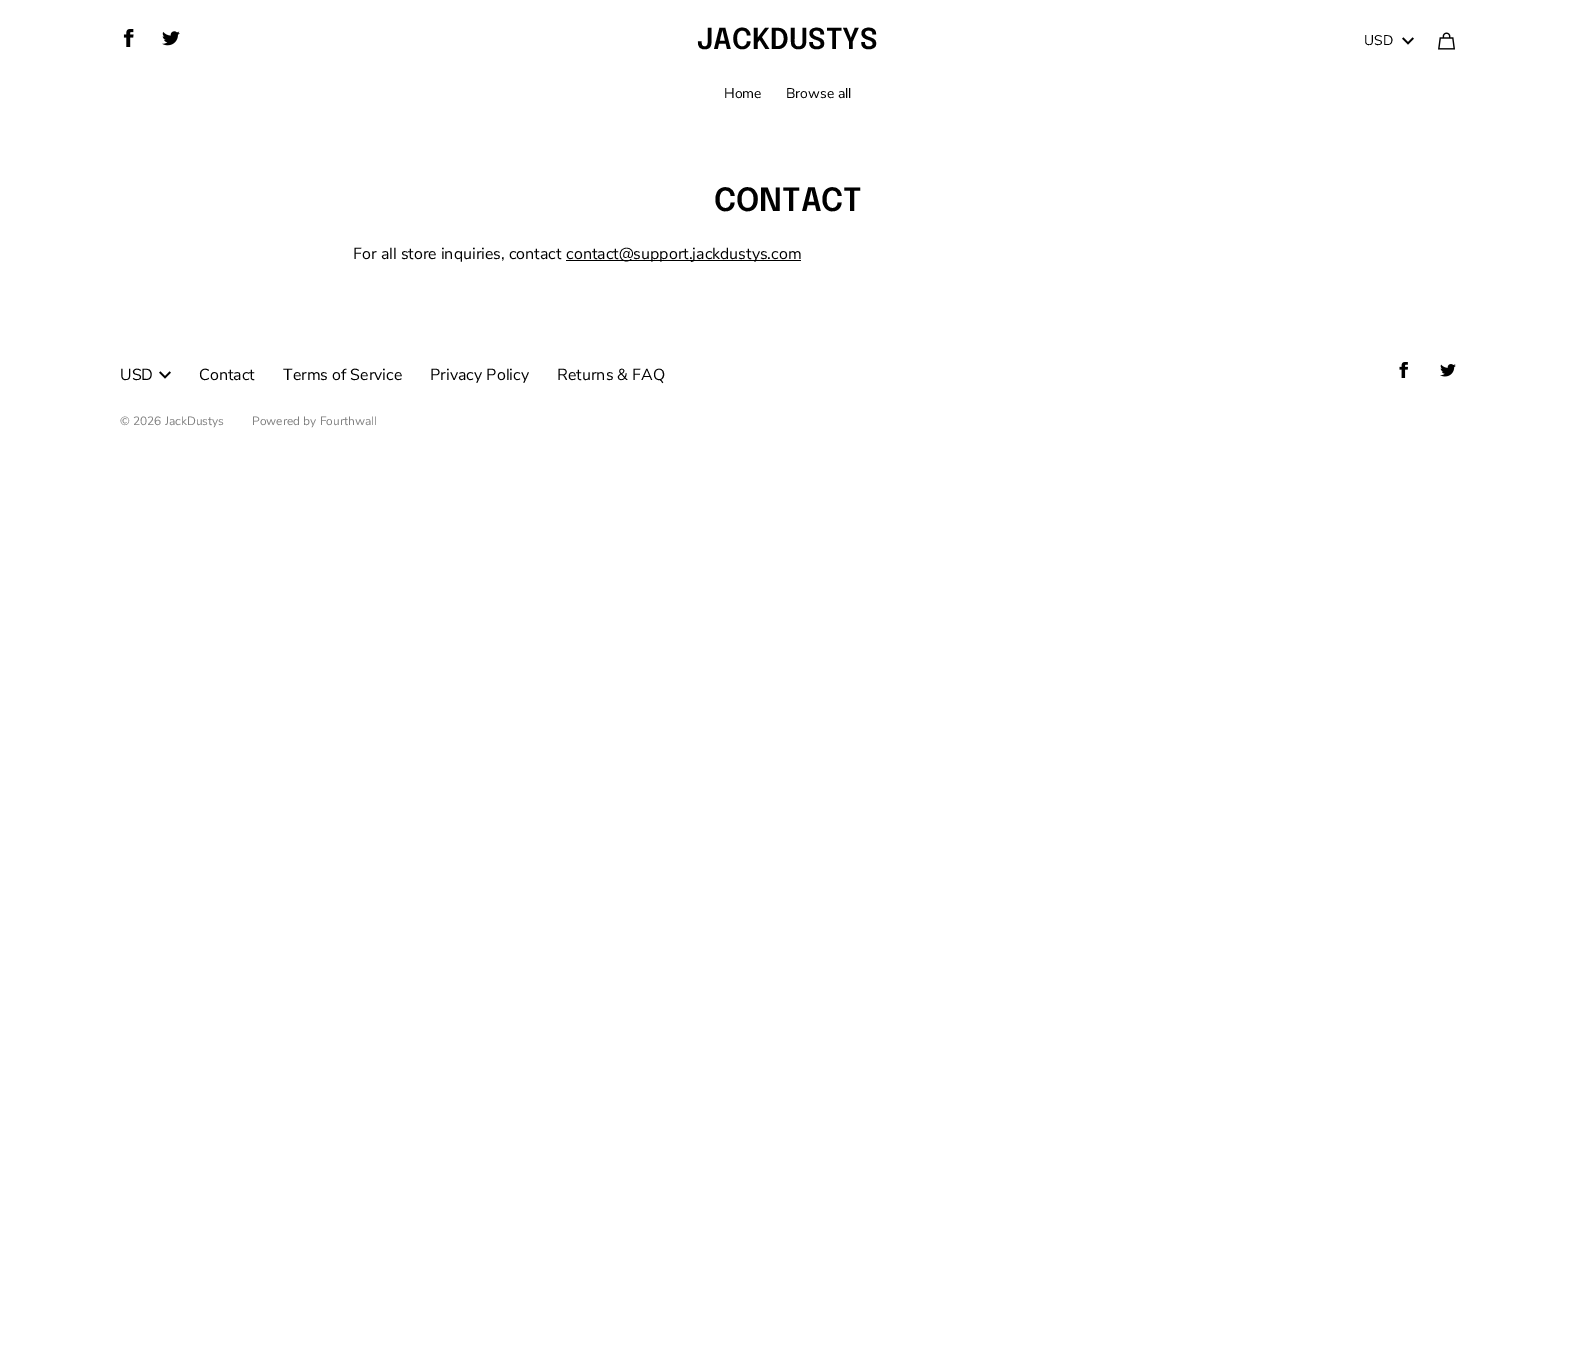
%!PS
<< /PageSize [1575 1367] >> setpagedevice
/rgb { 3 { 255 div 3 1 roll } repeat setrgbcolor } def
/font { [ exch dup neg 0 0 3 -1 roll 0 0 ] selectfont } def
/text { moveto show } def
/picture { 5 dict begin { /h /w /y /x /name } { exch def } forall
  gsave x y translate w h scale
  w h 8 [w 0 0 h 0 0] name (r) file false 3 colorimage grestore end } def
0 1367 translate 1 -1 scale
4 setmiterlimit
255 255 255 rgb
0 0 1575 1367 rectfill
(img_01.rgb) 123 29 11 18 picture
(img_02.rgb) 162 31 18 15 picture
(img_03.rgb) 1402 37 12 8 picture
(img_04.rgb) 1438 32 17 18 picture
0 0 0 rgb
566 260 235 1 rectfill
(img_03.rgb) 159 371 12 8 picture
(img_05.rgb) 1399 362 9 16 picture
(img_06.rgb) 1440 364 16 13 picture
/Epilogue-SemiBold 28.75 font
(JACKDUSTYS) 697 49 text
/NunitoSans-Regular 14 font
(USD) 1364 45 text
(Home) 724 98 text
(Browse all) 786 98 text
/Epilogue-SemiBold 32 font
(CONTACT) 714 211 text
/NunitoSans-Regular 16 font
(For all store inquiries, contact) 353 259 text
(contact@support.jackdustys.com) 566 259 text
(USD) 120 380 text
(Contact) 199 380 text
(Terms of Service) 283 380 text
(Privacy Policy) 430 380 text
(Returns & FAQ) 557 380 text
/NunitoSans-Regular 12 font
128 128 128 rgb
(© 2026 JackDustys) 120 425 text
(Powered by Fourthwall) 252 425 text
showpage
